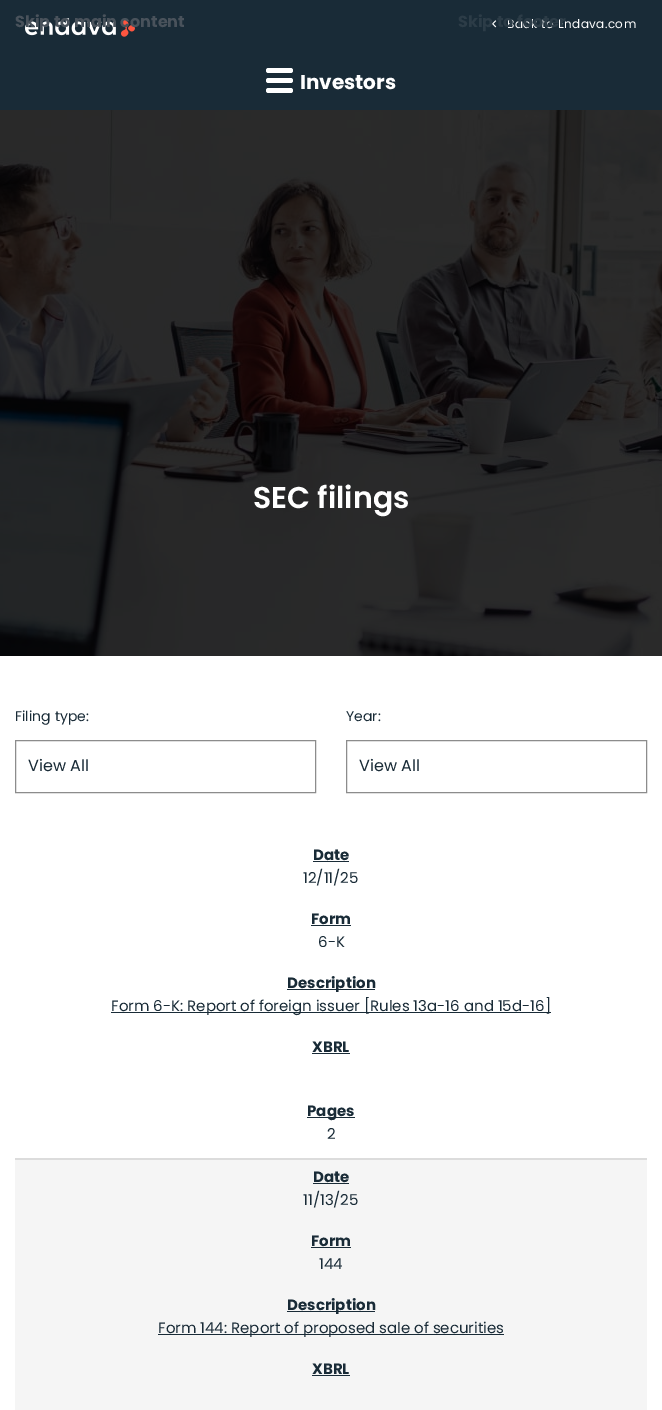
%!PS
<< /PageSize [662 1410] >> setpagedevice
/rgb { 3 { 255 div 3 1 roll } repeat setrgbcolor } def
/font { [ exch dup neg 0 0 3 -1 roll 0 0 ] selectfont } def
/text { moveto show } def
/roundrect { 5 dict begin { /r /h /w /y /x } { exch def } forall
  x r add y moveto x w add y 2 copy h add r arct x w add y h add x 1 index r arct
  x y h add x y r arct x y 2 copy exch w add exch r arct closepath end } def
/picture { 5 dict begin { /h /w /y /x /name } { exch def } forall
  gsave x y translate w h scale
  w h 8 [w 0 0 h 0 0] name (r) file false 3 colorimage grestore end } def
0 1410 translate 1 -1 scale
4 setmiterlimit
255 255 255 rgb
0 0 662 1410 rectfill
25 43 55 rgb
0 0 662 110 rectfill
(img_01.rgb) 25 18 110 19 picture
(img_02.rgb) 491 20 6 8 picture
255 255 255 rgb
266 68 27 5 2.5 roundrect fill
266 78 27 5 2.5 roundrect fill
266 88 27 5 2.5 roundrect fill
(img_03.rgb) 0 110 662 546 picture
140 140 140 rgb
15.5 740.5 300 52 rectstroke
346.5 740.5 300 52 rectstroke
25 43 55 rgb
313 861 36 1 rectfill
311 925 40 1 rectfill
287 989 88 1 rectfill
111 1012 440 1 rectfill
312 1053 38 1 rectfill
307 1117 48 1 rectfill
245 245 245 rgb
15 1160 632 250 rectfill
220 220 220 rgb
15 1158 632 2 rectfill
25 43 55 rgb
313 1183 36 1 rectfill
311 1247 40 1 rectfill
287 1311 88 1 rectfill
158 1334 346 1 rectfill
312 1375 38 1 rectfill
/Poppins-Bold 16 font
73 82 91 rgb
(Skip to main content) 15 27 text
/Poppins-Regular 12 font
255 255 255 rgb
507 28 moveto 0.4 0 (Back to Endava.com) ashow
/Poppins-Bold 16 font
44 60 71 rgb
(Skip to footer) 458 27 text
/Poppins-Bold 20 font
255 255 255 rgb
(Investors) 300 89 text
/Poppins-SemiBold 30 font
(SEC filings) 253 508 text
/Poppins-Regular 14 font
25 43 55 rgb
(Filing type:) 15 721 text
/Poppins-Regular 16 font
(View All) 28 771 text
/Poppins-Regular 14 font
(Year:) 346 721 text
/Poppins-Regular 16 font
(View All) 359 771 text
/Poppins-Bold 15 font
(Date) 313 860 text
/Poppins-Regular 15 font
(12/11/25) 303 883 text
/Poppins-Bold 15 font
(Form) 311 924 text
/Poppins-Regular 15 font
(6-K) 318 947 text
/Poppins-Bold 15 font
(Description) 287 988 text
/Poppins-Regular 15 font
(Form 6-K: Report of foreign issuer [Rules 13a-16 and 15d-16]) 111 1011 text
/Poppins-Bold 15 font
(XBRL) 312 1052 text
(Pages) 307 1116 text
/Poppins-Regular 15 font
(2) 327 1139 text
/Poppins-Bold 15 font
(Date) 313 1182 text
/Poppins-Regular 15 font
(11/13/25) 303 1205 text
/Poppins-Bold 15 font
(Form) 311 1246 text
/Poppins-Regular 15 font
(144) 319 1269 text
/Poppins-Bold 15 font
(Description) 287 1310 text
/Poppins-Regular 15 font
(Form 144: Report of proposed sale of securities) 158 1333 text
/Poppins-Bold 15 font
(XBRL) 312 1374 text
showpage
